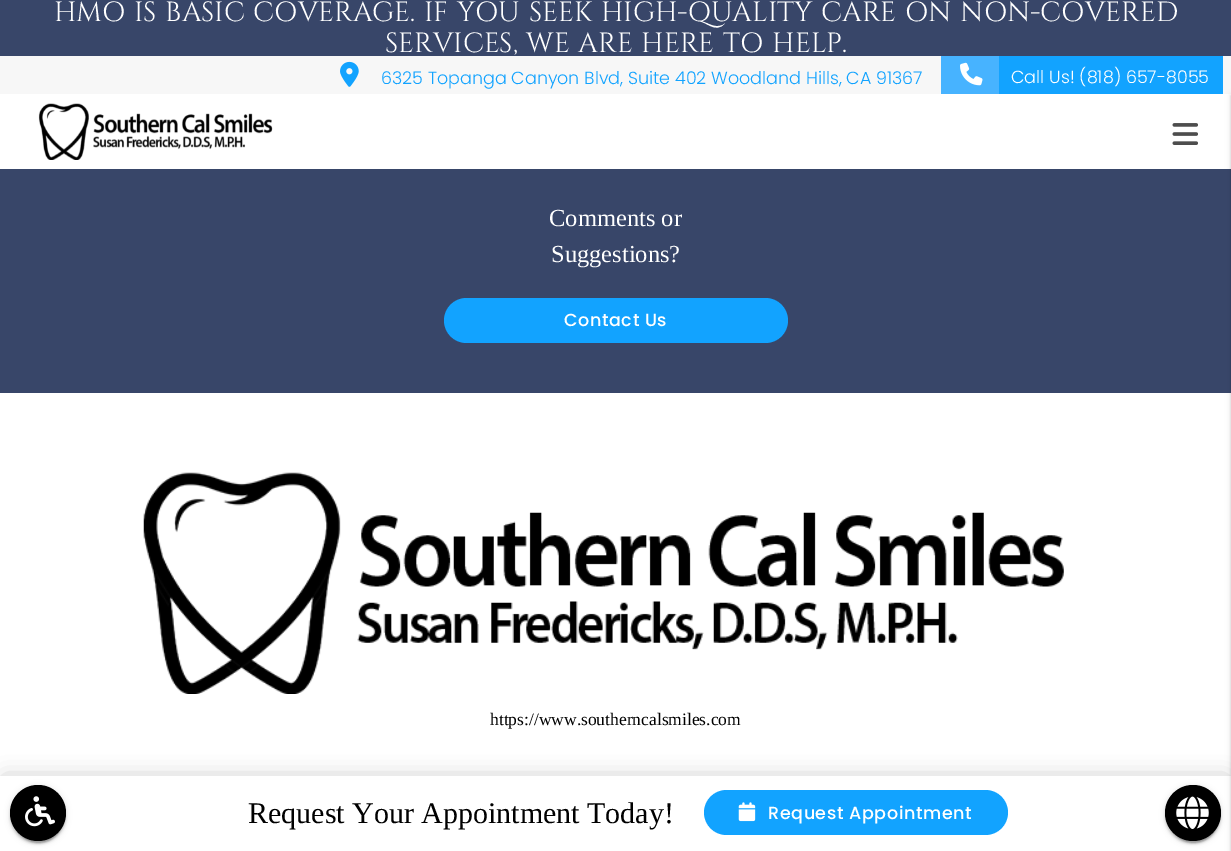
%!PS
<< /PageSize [1231 851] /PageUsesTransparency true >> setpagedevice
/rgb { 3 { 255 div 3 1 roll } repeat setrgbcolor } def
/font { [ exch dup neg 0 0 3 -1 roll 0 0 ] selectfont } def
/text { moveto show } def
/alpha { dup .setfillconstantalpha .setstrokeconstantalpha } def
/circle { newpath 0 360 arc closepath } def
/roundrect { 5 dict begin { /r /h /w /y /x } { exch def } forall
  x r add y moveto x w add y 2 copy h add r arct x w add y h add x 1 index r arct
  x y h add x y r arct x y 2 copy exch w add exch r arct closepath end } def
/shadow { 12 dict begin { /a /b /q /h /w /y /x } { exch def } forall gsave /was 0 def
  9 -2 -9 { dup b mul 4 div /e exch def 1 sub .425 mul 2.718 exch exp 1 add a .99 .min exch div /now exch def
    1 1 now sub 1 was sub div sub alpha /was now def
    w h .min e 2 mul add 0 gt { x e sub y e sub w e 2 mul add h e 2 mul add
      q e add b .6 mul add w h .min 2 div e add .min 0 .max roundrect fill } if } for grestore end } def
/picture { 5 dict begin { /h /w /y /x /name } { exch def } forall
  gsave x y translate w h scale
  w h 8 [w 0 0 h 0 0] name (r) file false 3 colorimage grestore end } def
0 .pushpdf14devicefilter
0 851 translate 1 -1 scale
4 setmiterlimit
255 255 255 rgb
0 0 1231 851 rectfill
56 70 105 rgb
0 0 1231 56 rectfill
247 247 247 rgb
0 56 1231 38 rectfill
(img_01.rgb) 340 61 19 26 picture
18 163 255 rgb
999 56 224 38 rectfill
71 179 255 rgb
941 56 58 38 rectfill
(img_02.rgb) 960 62 23 24 picture
(img_03.rgb) 38 103 235 57 picture
(img_04.rgb) 1172 123 26 22 picture
56 70 105 rgb
0 169 1231 224 rectfill
76 76 76 rgb
5 779 1221 65 0 11 0.37 shadow
255 255 255 rgb
0 776 1231 75 rectfill
0 0 0 rgb
1231 95 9 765 0 3 0.12 shadow
1231 96 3 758 0 1 0.14 shadow
18 163 255 rgb
444 298 344 45 22.5 roundrect fill
(img_05.rgb) 143 472 921 222 picture
0 0 0 rgb
13 791 51 52 25.5 0.5 0.2 shadow
10 786 56 57 28 3 0.12 shadow
10 788 56 56 28 1 0.14 shadow
38 813 28 circle fill
(img_06.rgb) 25 796 30 31 picture
18 163 255 rgb
704 790 304 45 22.5 roundrect fill
(img_07.rgb) 738 802 18 20 picture
0 0 0 rgb
1168 791 51 52 25.5 0.5 0.2 shadow
1165 786 56 57 28 3 0.12 shadow
1165 788 56 56 28 1 0.14 shadow
1193 813 28 circle fill
(img_08.rgb) 1176 796 33 33 picture
/Cinzel-Regular 27.7 font
255 255 255 rgb
54 21 moveto 1.9 0 32 -0.05 0 (HMO IS BASIC COVERAGE. IF YOU SEEK HIGH-QUALITY CARE ON NON-COVERED) awidthshow
385 52 moveto 1.9 0 32 -0.05 0 (SERVICES, WE ARE HERE TO HELP.) awidthshow
/Poppins-Light 17.5 font
18 163 255 rgb
(6325 Topanga Canyon Blvd, Suite 402 Woodland Hills, CA 91367) 381 84 text
255 255 255 rgb
(Call Us! \(818\) 657-8055) 1011 83 text
/Tinos-Regular 24.5 font
(Comments or) 549 226 text
(Suggestions?) 551 262 text
/Poppins-Medium 17.5 font
564 326 moveto 0.6 0 (Contact Us) ashow
/Tinos-Regular 17.5 font
0 0 0 rgb
(https://www.southerncalsmiles.com) 490 725 text
/Tinos-Regular 30 font
(Request Your Appointment Today!) 248 823 text
/Poppins-Medium 17.5 font
255 255 255 rgb
768 819 moveto 0.6 0 (Request Appointment) ashow
.poppdf14devicefilter showpage
